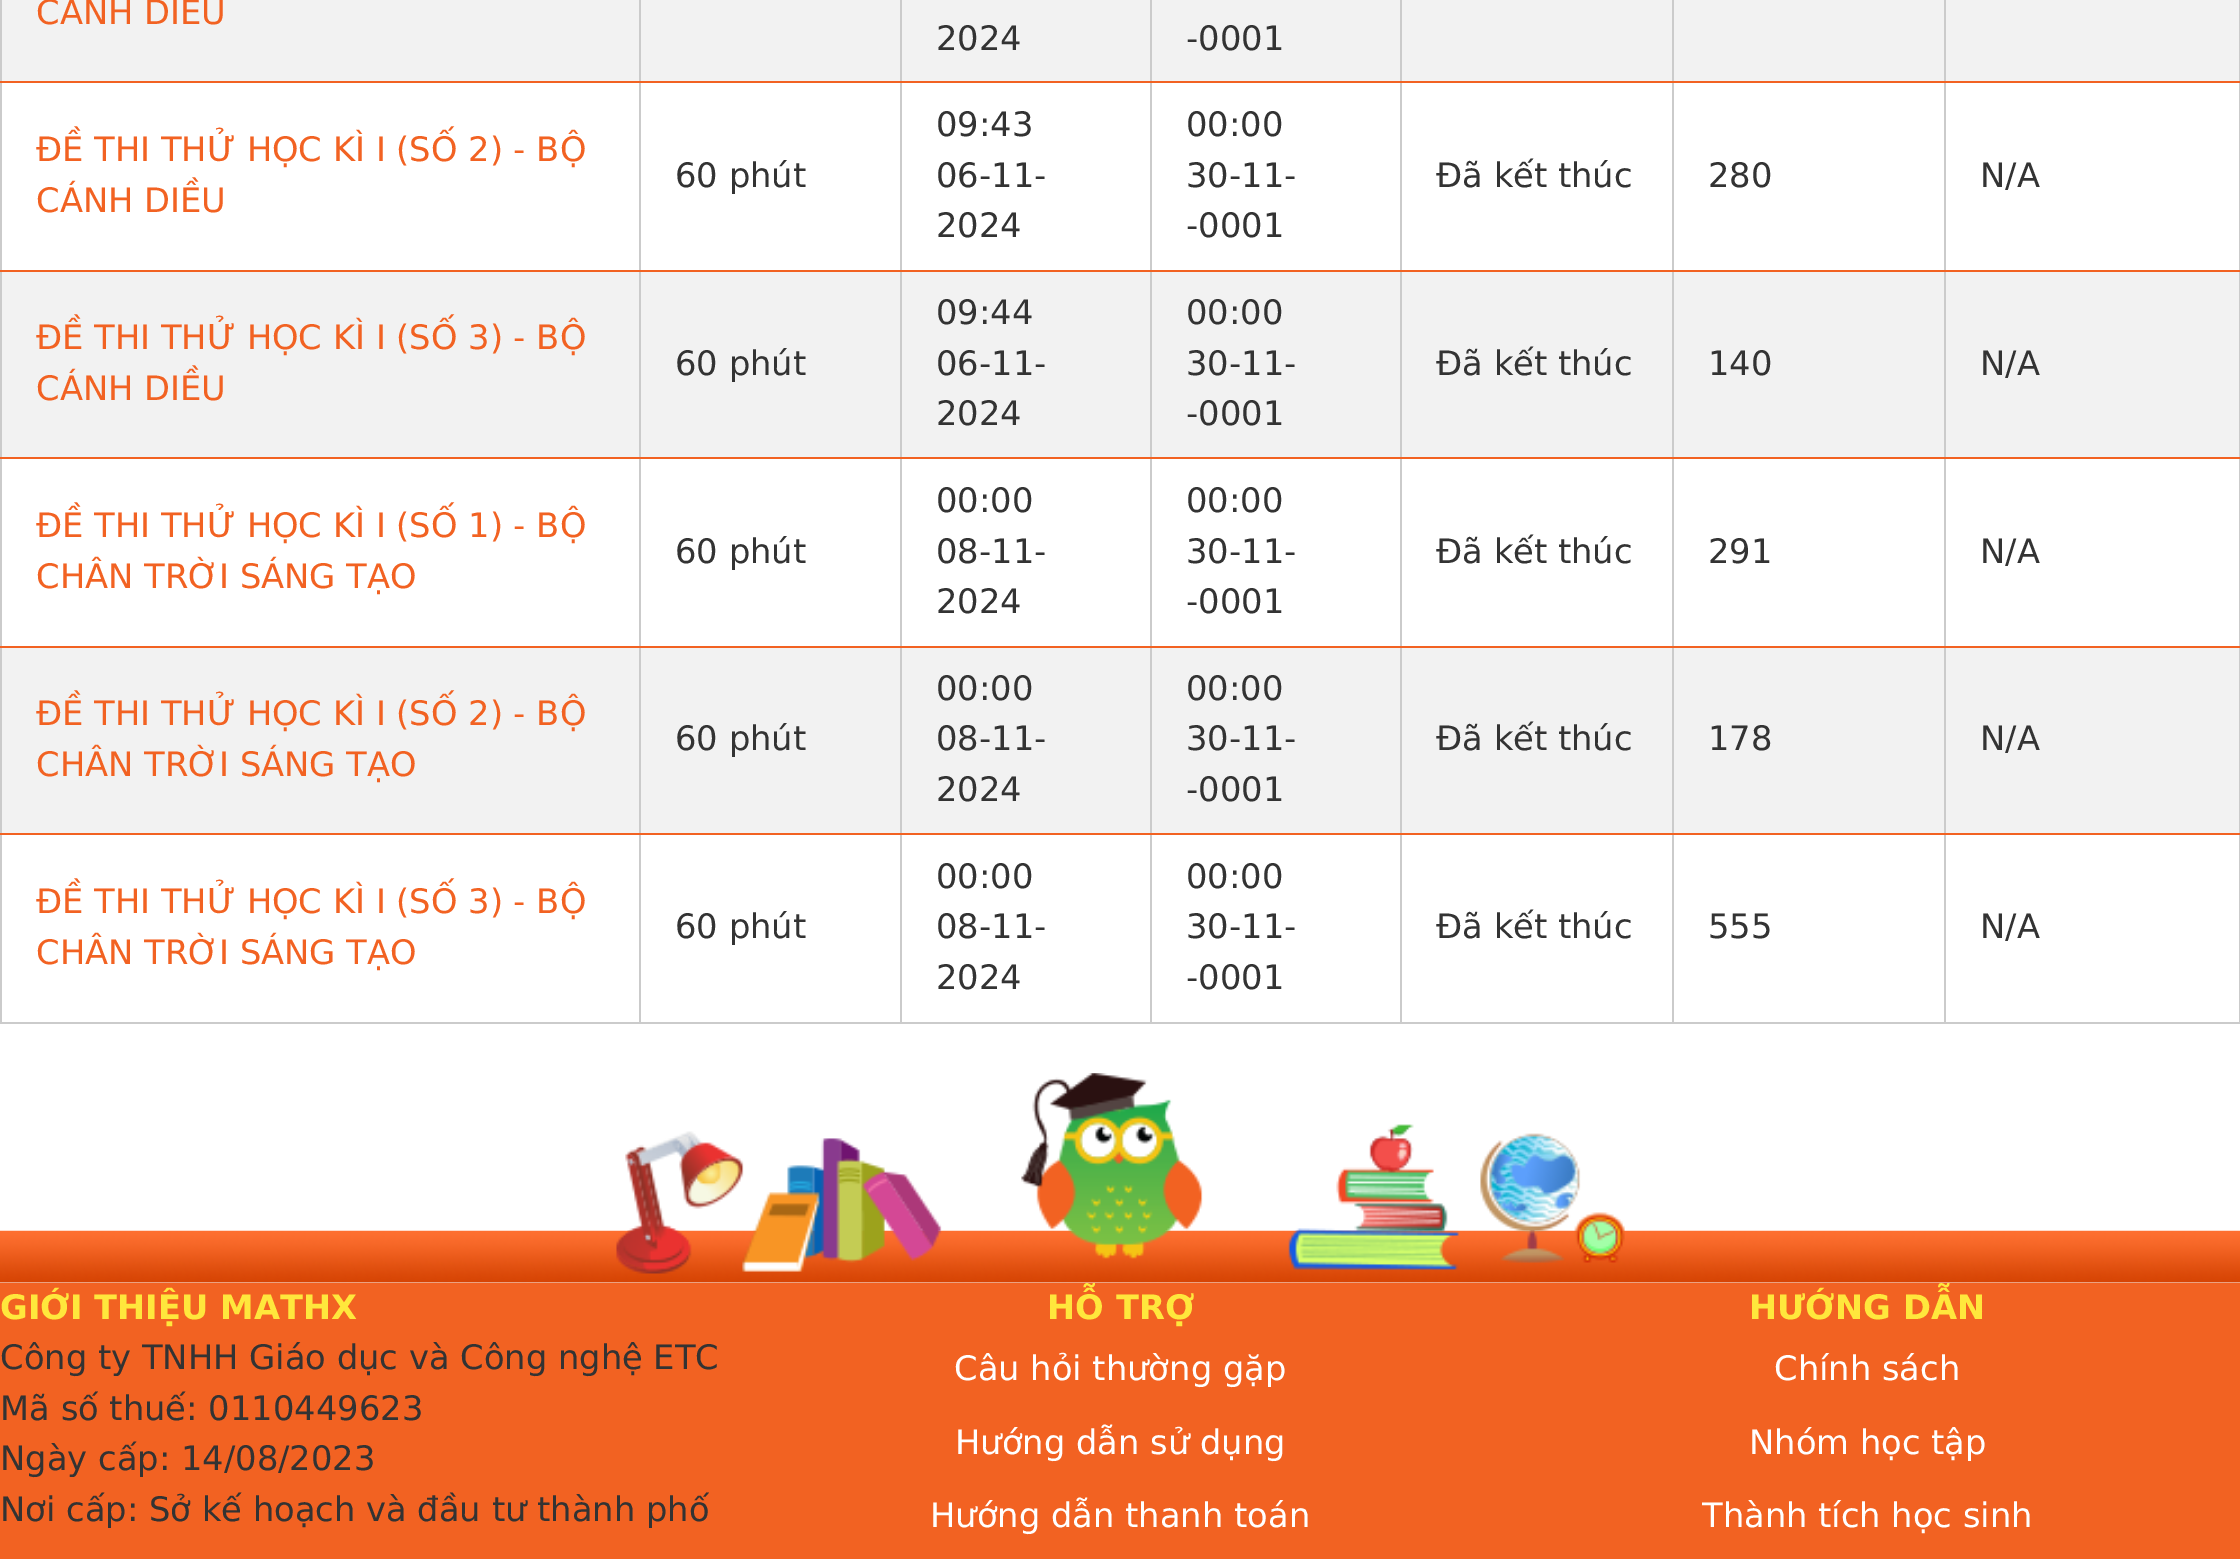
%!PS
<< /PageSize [2240 1559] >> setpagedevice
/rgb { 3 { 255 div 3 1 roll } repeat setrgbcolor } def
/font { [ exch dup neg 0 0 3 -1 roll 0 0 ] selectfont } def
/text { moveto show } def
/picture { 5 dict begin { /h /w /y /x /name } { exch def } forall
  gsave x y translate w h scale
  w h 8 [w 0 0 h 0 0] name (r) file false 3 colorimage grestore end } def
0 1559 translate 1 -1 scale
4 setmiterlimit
255 255 255 rgb
0 0 2240 1559 rectfill
203 203 203 rgb
2239 0 1 1024 rectfill
0 1022 2240 2 rectfill
0 0 2 1024 rectfill
242 242 242 rgb
2 0 637 81 rectfill
203 203 203 rgb
1944 833 2 191 rectfill
242 98 34 rgb
1944 833 296 2 rectfill
203 203 203 rgb
1944 646 2 189 rectfill
242 98 34 rgb
1944 646 296 2 rectfill
203 203 203 rgb
1944 457 2 191 rectfill
242 98 34 rgb
1944 457 296 2 rectfill
203 203 203 rgb
1944 270 2 189 rectfill
242 98 34 rgb
1944 270 296 2 rectfill
203 203 203 rgb
1944 81 2 191 rectfill
242 98 34 rgb
1944 81 296 2 rectfill
203 203 203 rgb
1944 0 2 83 rectfill
1672 833 2 191 rectfill
242 98 34 rgb
1672 833 274 2 rectfill
203 203 203 rgb
1672 646 2 189 rectfill
242 98 34 rgb
1672 646 274 2 rectfill
203 203 203 rgb
1672 457 2 191 rectfill
242 98 34 rgb
1672 457 274 2 rectfill
203 203 203 rgb
1672 270 2 189 rectfill
242 98 34 rgb
1672 270 274 2 rectfill
203 203 203 rgb
1672 81 2 191 rectfill
242 98 34 rgb
1672 81 274 2 rectfill
203 203 203 rgb
1672 0 2 83 rectfill
1400 833 2 191 rectfill
242 98 34 rgb
1400 833 274 2 rectfill
203 203 203 rgb
1400 646 2 189 rectfill
242 98 34 rgb
1400 646 274 2 rectfill
203 203 203 rgb
1400 457 2 191 rectfill
242 98 34 rgb
1400 457 274 2 rectfill
203 203 203 rgb
1400 270 2 189 rectfill
242 98 34 rgb
1400 270 274 2 rectfill
203 203 203 rgb
1400 81 2 191 rectfill
242 98 34 rgb
1400 81 274 2 rectfill
203 203 203 rgb
1400 0 2 83 rectfill
1150 833 2 191 rectfill
242 98 34 rgb
1150 833 252 2 rectfill
203 203 203 rgb
1150 646 2 189 rectfill
242 98 34 rgb
1150 646 252 2 rectfill
203 203 203 rgb
1150 457 2 191 rectfill
242 98 34 rgb
1150 457 252 2 rectfill
203 203 203 rgb
1150 270 2 189 rectfill
242 98 34 rgb
1150 270 252 2 rectfill
203 203 203 rgb
1150 81 2 191 rectfill
242 98 34 rgb
1150 81 252 2 rectfill
203 203 203 rgb
1150 0 2 83 rectfill
900 833 2 191 rectfill
242 98 34 rgb
900 833 252 2 rectfill
203 203 203 rgb
900 646 2 189 rectfill
242 98 34 rgb
900 646 252 2 rectfill
203 203 203 rgb
900 457 2 191 rectfill
242 98 34 rgb
900 457 252 2 rectfill
203 203 203 rgb
900 270 2 189 rectfill
242 98 34 rgb
900 270 252 2 rectfill
203 203 203 rgb
900 81 2 191 rectfill
242 98 34 rgb
900 81 252 2 rectfill
203 203 203 rgb
900 0 2 83 rectfill
639 833 2 191 rectfill
242 98 34 rgb
639 833 263 2 rectfill
203 203 203 rgb
639 646 2 189 rectfill
242 98 34 rgb
639 646 263 2 rectfill
203 203 203 rgb
639 457 2 191 rectfill
242 98 34 rgb
639 457 263 2 rectfill
203 203 203 rgb
639 270 2 189 rectfill
242 98 34 rgb
639 270 263 2 rectfill
203 203 203 rgb
639 81 2 191 rectfill
242 98 34 rgb
639 81 263 2 rectfill
203 203 203 rgb
639 0 2 83 rectfill
242 98 34 rgb
0 81 641 2 rectfill
242 242 242 rgb
641 0 259 81 rectfill
902 0 248 81 rectfill
1152 0 248 81 rectfill
1402 0 270 81 rectfill
1674 0 270 81 rectfill
1946 0 293 81 rectfill
242 98 34 rgb
0 270 641 2 rectfill
242 242 242 rgb
2 272 637 185 rectfill
242 98 34 rgb
0 457 641 2 rectfill
242 242 242 rgb
641 272 259 185 rectfill
902 272 248 185 rectfill
1152 272 248 185 rectfill
1402 272 270 185 rectfill
1674 272 270 185 rectfill
1946 272 293 185 rectfill
242 98 34 rgb
0 646 641 2 rectfill
242 242 242 rgb
2 648 637 185 rectfill
242 98 34 rgb
0 833 641 2 rectfill
242 242 242 rgb
641 648 259 185 rectfill
902 648 248 185 rectfill
1152 648 248 185 rectfill
1402 648 270 185 rectfill
1674 648 270 185 rectfill
1946 648 293 185 rectfill
(img_02.rgb) 0 1230 2240 53 picture
(img_01.rgb) 616 1073 1009 201 picture
242 98 34 rgb
0 1283 2240 276 rectfill
/DejaVuSans-Regular 33.75 font
(CÁNH DIỀU) 36 24 text
51 51 51 rgb
(2024) 936 50 text
(-0001) 1186 50 text
242 98 34 rgb
(ĐỀ THI THỬ HỌC KÌ I \(SỐ 2\) - BỘ) 36 161 text
(CÁNH DIỀU) 36 212 text
51 51 51 rgb
(60 phút) 675 187 text
(09:43) 936 136 text
(06-11-) 936 187 text
(2024) 936 237 text
(00:00) 1186 136 text
(30-11-) 1186 187 text
(-0001) 1186 237 text
(Đã kết thúc) 1436 187 text
(280) 1708 187 text
(N/A) 1980 187 text
242 98 34 rgb
(ĐỀ THI THỬ HỌC KÌ I \(SỐ 3\) - BỘ) 36 349 text
(CÁNH DIỀU) 36 400 text
51 51 51 rgb
(60 phút) 675 375 text
(09:44) 936 324 text
(06-11-) 936 375 text
(2024) 936 425 text
(00:00) 1186 324 text
(30-11-) 1186 375 text
(-0001) 1186 425 text
(Đã kết thúc) 1436 375 text
(140) 1708 375 text
(N/A) 1980 375 text
242 98 34 rgb
(ĐỀ THI THỬ HỌC KÌ I \(SỐ 1\) - BỘ) 36 537 text
(CHÂN TRỜI SÁNG TẠO) 36 588 text
51 51 51 rgb
(60 phút) 675 563 text
(00:00) 936 512 text
(08-11-) 936 563 text
(2024) 936 613 text
(00:00) 1186 512 text
(30-11-) 1186 563 text
(-0001) 1186 613 text
(Đã kết thúc) 1436 563 text
(291) 1708 563 text
(N/A) 1980 563 text
242 98 34 rgb
(ĐỀ THI THỬ HỌC KÌ I \(SỐ 2\) - BỘ) 36 725 text
(CHÂN TRỜI SÁNG TẠO) 36 776 text
51 51 51 rgb
(60 phút) 675 750 text
(00:00) 936 700 text
(08-11-) 936 750 text
(2024) 936 801 text
(00:00) 1186 700 text
(30-11-) 1186 750 text
(-0001) 1186 801 text
(Đã kết thúc) 1436 750 text
(178) 1708 750 text
(N/A) 1980 750 text
242 98 34 rgb
(ĐỀ THI THỬ HỌC KÌ I \(SỐ 3\) - BỘ) 36 913 text
(CHÂN TRỜI SÁNG TẠO) 36 964 text
51 51 51 rgb
(60 phút) 675 938 text
(00:00) 936 888 text
(08-11-) 936 938 text
(2024) 936 989 text
(00:00) 1186 888 text
(30-11-) 1186 938 text
(-0001) 1186 989 text
(Đã kết thúc) 1436 938 text
(555) 1708 938 text
(N/A) 1980 938 text
/DejaVuSans-Bold 33.75 font
255 231 60 rgb
(GIỚI THIỆU MATHX) 0 1319 text
/DejaVuSans-Regular 33.75 font
51 51 51 rgb
(Công ty TNHH Giáo dục và Công nghệ ETC) 0 1369 text
(Mã số thuế: 0110449623) 0 1420 text
(Ngày cấp: 14/08/2023) 0 1470 text
(Nơi cấp: Sở kế hoạch và đầu tư thành phố) 0 1521 text
/DejaVuSans-Bold 33.75 font
255 231 60 rgb
(HỖ TRỢ) 1047 1319 text
/DejaVuSans-Regular 33.75 font
255 255 255 rgb
(Câu hỏi thường gặp) 954 1380 text
(Hướng dẫn sử dụng) 955 1454 text
(Hướng dẫn thanh toán) 930 1527 text
/DejaVuSans-Bold 33.75 font
255 231 60 rgb
(HƯỚNG DẪN) 1749 1319 text
/DejaVuSans-Regular 33.75 font
255 255 255 rgb
(Chính sách) 1774 1380 text
(Nhóm học tập) 1749 1454 text
(Thành tích học sinh) 1702 1527 text
showpage
